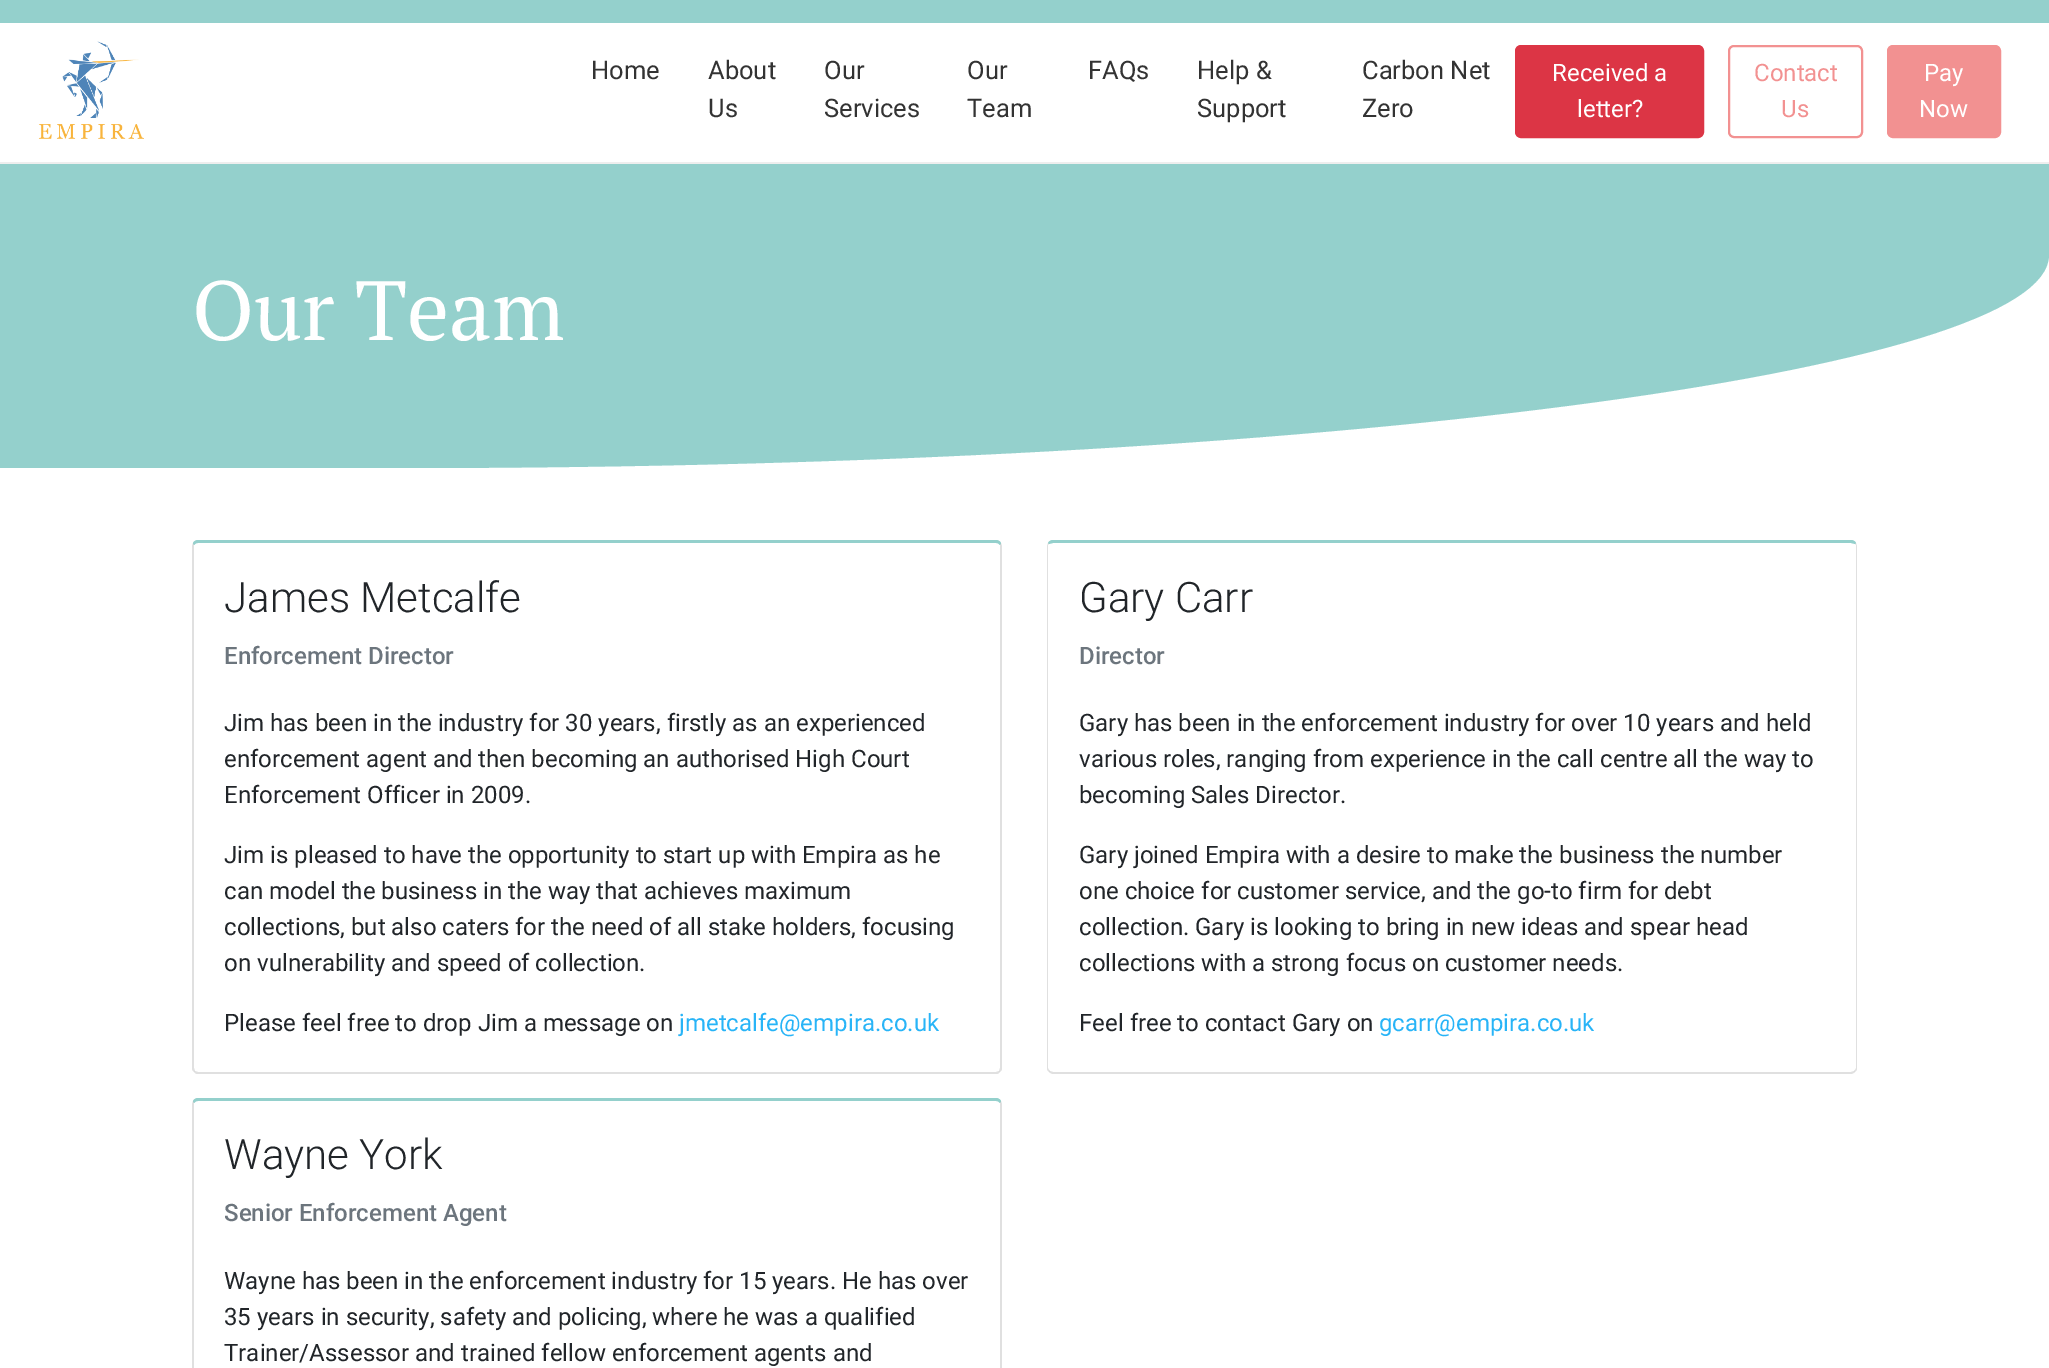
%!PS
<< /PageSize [2049 1368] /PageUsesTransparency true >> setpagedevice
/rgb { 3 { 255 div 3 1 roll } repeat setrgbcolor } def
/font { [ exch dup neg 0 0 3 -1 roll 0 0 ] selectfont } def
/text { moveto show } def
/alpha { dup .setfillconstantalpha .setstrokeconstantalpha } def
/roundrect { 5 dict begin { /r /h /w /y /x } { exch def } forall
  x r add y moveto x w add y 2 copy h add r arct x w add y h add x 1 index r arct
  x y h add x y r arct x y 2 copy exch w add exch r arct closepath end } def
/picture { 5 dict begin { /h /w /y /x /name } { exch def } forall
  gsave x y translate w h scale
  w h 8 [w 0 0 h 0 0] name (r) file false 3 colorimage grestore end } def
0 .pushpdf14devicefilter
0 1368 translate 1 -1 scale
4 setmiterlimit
255 255 255 rgb
0 0 2049 1368 rectfill
148 208 204 rgb
0 0 2049 23 rectfill
238 238 238 rgb
0 162 2049 2 rectfill
(img_01.rgb) 38 41 106 98 picture
220 53 69 rgb
1516 46 187 91 5 roundrect gsave fill grestore
2 setlinewidth
stroke
242 145 145 rgb
1729 46 133 91 5 roundrect stroke
1888 46 112 91 5 roundrect gsave fill grestore
stroke
148 208 204 rgb
0 164 moveto 2049 0 rlineto 0 91 rlineto 0 118 -734 213 -1639 213 rcurveto -410 0 rlineto closepath fill
198 540 moveto -2 0 -4 1 -5 3 rcurveto 1 2 rlineto 1 -1 2 -2 4 -2 rcurveto 798 0 rlineto 2 0 3 1 4 2 rcurveto 1 -2 rlineto -1 -2 -3 -3 -5 -3 rcurveto closepath fill
0.12 alpha
0 0 0 rgb
1002 1068 moveto 0 -522 rlineto -1 -3 rlineto -1 2 rlineto 0 523 rlineto -1 3 rlineto 1 1 rlineto 1 -1 2 -2 2 -4 rcurveto closepath fill
198 1074 moveto 798 0 rlineto 2 0 3 -1 4 -2 rcurveto -1 -1 rlineto -3 1 rlineto -798 0 rlineto -3 -1 rlineto -1 1 rlineto 1 1 2 2 4 2 rcurveto closepath fill
192 546 moveto 0 522 rlineto 0 2 1 3 2 4 rcurveto 1 -1 rlineto -1 -3 rlineto 0 -523 rlineto -1 -2 rlineto closepath fill
1 alpha
148 208 204 rgb
1053 540 moveto -2 0 -4 1 -5 3 rcurveto 1 1 rlineto 4 -1 rlineto 798 0 rlineto 4 1 rlineto 1 -1 rlineto -1 -2 -3 -3 -5 -3 rcurveto closepath fill
0.12 alpha
0 0 0 rgb
1857 1068 moveto 0 -522 rlineto -1 -3 rlineto -1 1 rlineto 1 1 rlineto 0 523 rlineto 0 1 -1 2 -2 3 rcurveto 1 1 rlineto 1 -1 2 -2 2 -4 rcurveto closepath fill
1053 1074 moveto 798 0 rlineto 1 0 3 -1 4 -2 rcurveto -1 -1 rlineto -3 1 rlineto -798 0 rlineto -3 -1 rlineto -1 1 rlineto 1 1 3 2 4 2 rcurveto closepath fill
1047 546 moveto 0 522 rlineto 0 2 1 3 2 4 rcurveto 1 -1 rlineto -1 -1 -2 -2 -2 -3 rcurveto 0 -523 rlineto 1 -1 rlineto -1 -1 rlineto closepath fill
1 alpha
148 208 204 rgb
198 1098 moveto -2 0 -4 1 -5 3 rcurveto 1 2 rlineto 1 -1 2 -2 4 -2 rcurveto 798 0 rlineto 2 0 3 1 4 2 rcurveto 1 -2 rlineto -1 -2 -3 -3 -5 -3 rcurveto closepath fill
0.12 alpha
0 0 0 rgb
1002 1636 moveto 0 -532 rlineto -1 -3 rlineto -1 2 rlineto 0 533 rlineto -1 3 rlineto 1 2 rlineto 1 -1 2 -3 2 -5 rcurveto closepath fill
192 1104 moveto 0 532 rlineto 0 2 1 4 2 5 rcurveto 1 -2 rlineto -1 -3 rlineto 0 -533 rlineto -1 -2 rlineto closepath fill
/Roboto-Regular 25.5 font
1 alpha
51 51 51 rgb
(Home) 591 79 text
(About) 708 79 text
(Us) 708 117 text
(Our) 824 79 text
(Services) 824 117 text
(Our) 967 79 text
(Team) 967 117 text
(FAQs) 1088 79 text
(Help &) 1197 79 text
(Support) 1197 117 text
(Carbon Net) 1362 79 text
(Zero) 1362 117 text
/Roboto-Regular 24 font
255 255 255 rgb
(Received a) 1552 81 text
(letter?) 1577 117 text
242 145 145 rgb
(Contact) 1754 81 text
(Us) 1781 117 text
255 255 255 rgb
(Pay) 1924 81 text
(Now) 1919 117 text
/PTSerif-Regular 84 font
(Our Team) 192 340 text
/Roboto-Light 42 font
33 37 41 rgb
(James Metcalfe) 224 612 text
/Roboto-Medium 24 font
108 117 125 rgb
(Enforcement Director) 224 664 text
/Roboto-Regular 24 font
33 37 41 rgb
(Jim has been in the industry for 30 years, firstly as an experienced) 224 731 text
(enforcement agent and then becoming an authorised High Court) 224 767 text
(Enforcement Officer in 2009.) 224 803 text
(Jim is pleased to have the opportunity to start up with Empira as he) 224 863 text
(can model the business in the way that achieves maximum) 224 899 text
(collections, but also caters for the need of all stake holders, focusing) 224 935 text
(on vulnerability and speed of collection.) 224 971 text
(Please feel free to drop Jim a message on) 224 1031 text
40 180 247 rgb
(jmetcalfe@empira.co.uk) 679 1031 text
/Roboto-Light 42 font
33 37 41 rgb
(Gary Carr) 1079 612 text
/Roboto-Medium 24 font
108 117 125 rgb
(Director) 1079 664 text
/Roboto-Regular 24 font
33 37 41 rgb
(Gary has been in the enforcement industry for over 10 years and held) 1079 731 text
(various roles, ranging from experience in the call centre all the way to) 1079 767 text
(becoming Sales Director.) 1079 803 text
(Gary joined Empira with a desire to make the business the number) 1079 863 text
(one choice for customer service, and the go-to firm for debt) 1079 899 text
(collection. Gary is looking to bring in new ideas and spear head) 1079 935 text
(collections with a strong focus on customer needs.) 1079 971 text
(Feel free to contact Gary on) 1079 1031 text
40 180 247 rgb
(gcarr@empira.co.uk) 1379 1031 text
/Roboto-Light 42 font
33 37 41 rgb
(Wayne York) 224 1169 text
/Roboto-Medium 24 font
108 117 125 rgb
(Senior Enforcement Agent) 224 1221 text
/Roboto-Regular 24 font
33 37 41 rgb
(Wayne has been in the enforcement industry for 15 years. He has over) 224 1289 text
(35 years in security, safety and policing, where he was a qualified) 224 1325 text
(Trainer/Assessor and trained fellow enforcement agents and) 224 1361 text
.poppdf14devicefilter showpage
